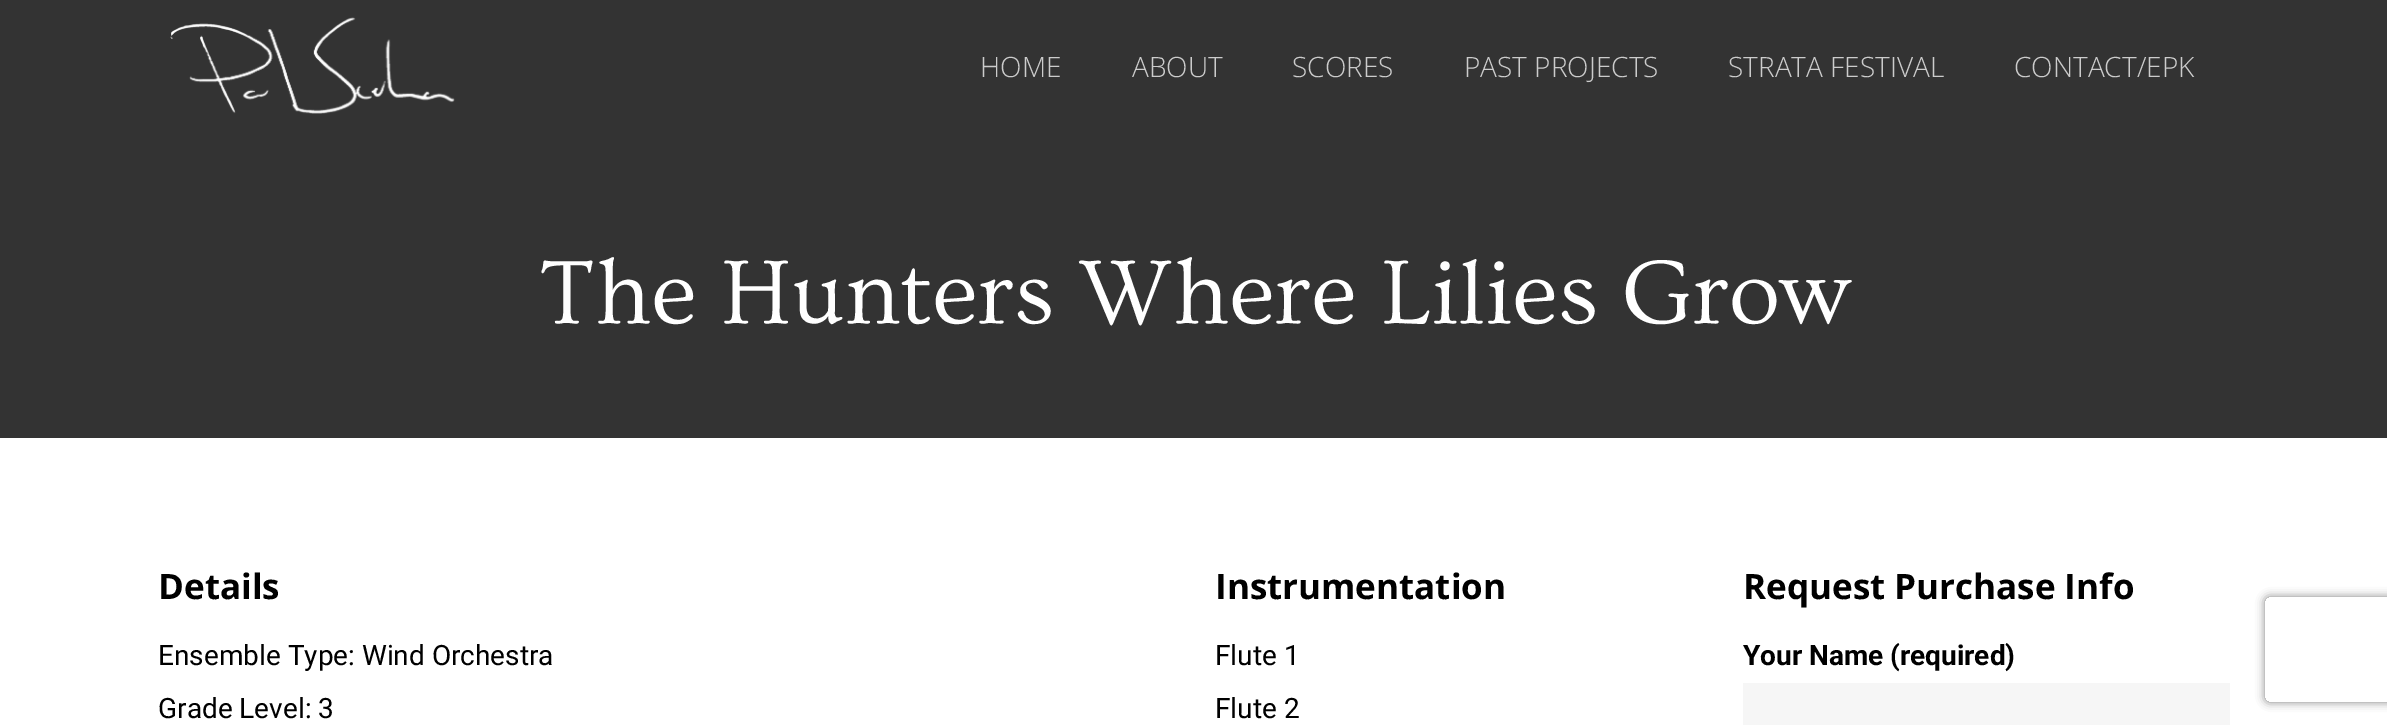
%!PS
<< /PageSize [2387 725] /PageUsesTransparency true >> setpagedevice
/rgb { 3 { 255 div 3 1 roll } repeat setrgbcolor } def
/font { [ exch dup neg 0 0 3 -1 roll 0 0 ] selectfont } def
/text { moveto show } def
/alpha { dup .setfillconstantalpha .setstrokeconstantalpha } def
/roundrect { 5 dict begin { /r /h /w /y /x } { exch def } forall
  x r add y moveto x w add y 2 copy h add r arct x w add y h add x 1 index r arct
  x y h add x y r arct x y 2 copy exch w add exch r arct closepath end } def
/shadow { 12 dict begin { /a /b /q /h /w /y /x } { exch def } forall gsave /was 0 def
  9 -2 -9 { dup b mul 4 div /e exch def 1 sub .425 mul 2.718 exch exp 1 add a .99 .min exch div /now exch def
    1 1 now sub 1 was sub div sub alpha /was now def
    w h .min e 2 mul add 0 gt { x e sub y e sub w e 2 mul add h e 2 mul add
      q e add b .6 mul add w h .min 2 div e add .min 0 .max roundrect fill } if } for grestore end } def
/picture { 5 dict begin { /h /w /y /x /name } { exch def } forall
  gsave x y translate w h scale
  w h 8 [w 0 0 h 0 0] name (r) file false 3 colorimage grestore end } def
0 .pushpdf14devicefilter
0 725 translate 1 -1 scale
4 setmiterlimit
51 51 51 rgb
0 0 2387 725 rectfill
(img_01.rgb) 170 17 285 97 picture
255 255 255 rgb
0 438 2387 287 rectfill
246 246 246 rgb
1743 683 487 42 rectfill
gsave
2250 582 moveto 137 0 rlineto 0 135 rlineto -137 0 rlineto closepath 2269 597 moveto 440 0 rlineto 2 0 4 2 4 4 rcurveto 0 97 rlineto 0 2 -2 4 -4 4 rcurveto -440 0 rlineto -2 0 -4 -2 -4 -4 rcurveto 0 -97 rlineto 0 -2 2 -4 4 -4 rcurveto closepath eoclip newpath
128 128 128 rgb
2265 597 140 105 4 4.5 1 shadow
grestore
/OpenSans-Light 28 font
204 204 204 rgb
(HOME) 980 77 text
(ABOUT) 1132 77 text
(SCORES) 1292 77 text
(PAST PROJECTS) 1464 77 text
(STRATA FESTIVAL) 1728 77 text
(CONTACT/EPK) 2014 77 text
/Ovo-Regular 94.5 font
255 255 255 rgb
(The Hunters Where Lilies Grow) 539 323 text
/OpenSans-Bold 35 font
0 0 0 rgb
(Details) 158 599 text
/Roboto-Regular 28 font
(Ensemble Type: Wind Orchestra) 158 665 text
(Grade Level: 3) 158 718 text
/OpenSans-Bold 35 font
(Instrumentation) 1215 599 text
/Roboto-Regular 28 font
(Flute 1) 1215 665 text
(Flute 2) 1215 718 text
/OpenSans-Bold 35 font
(Request Purchase Info) 1743 599 text
/Roboto-Bold 28 font
(Your Name \(required\)) 1743 665 text
.poppdf14devicefilter showpage
